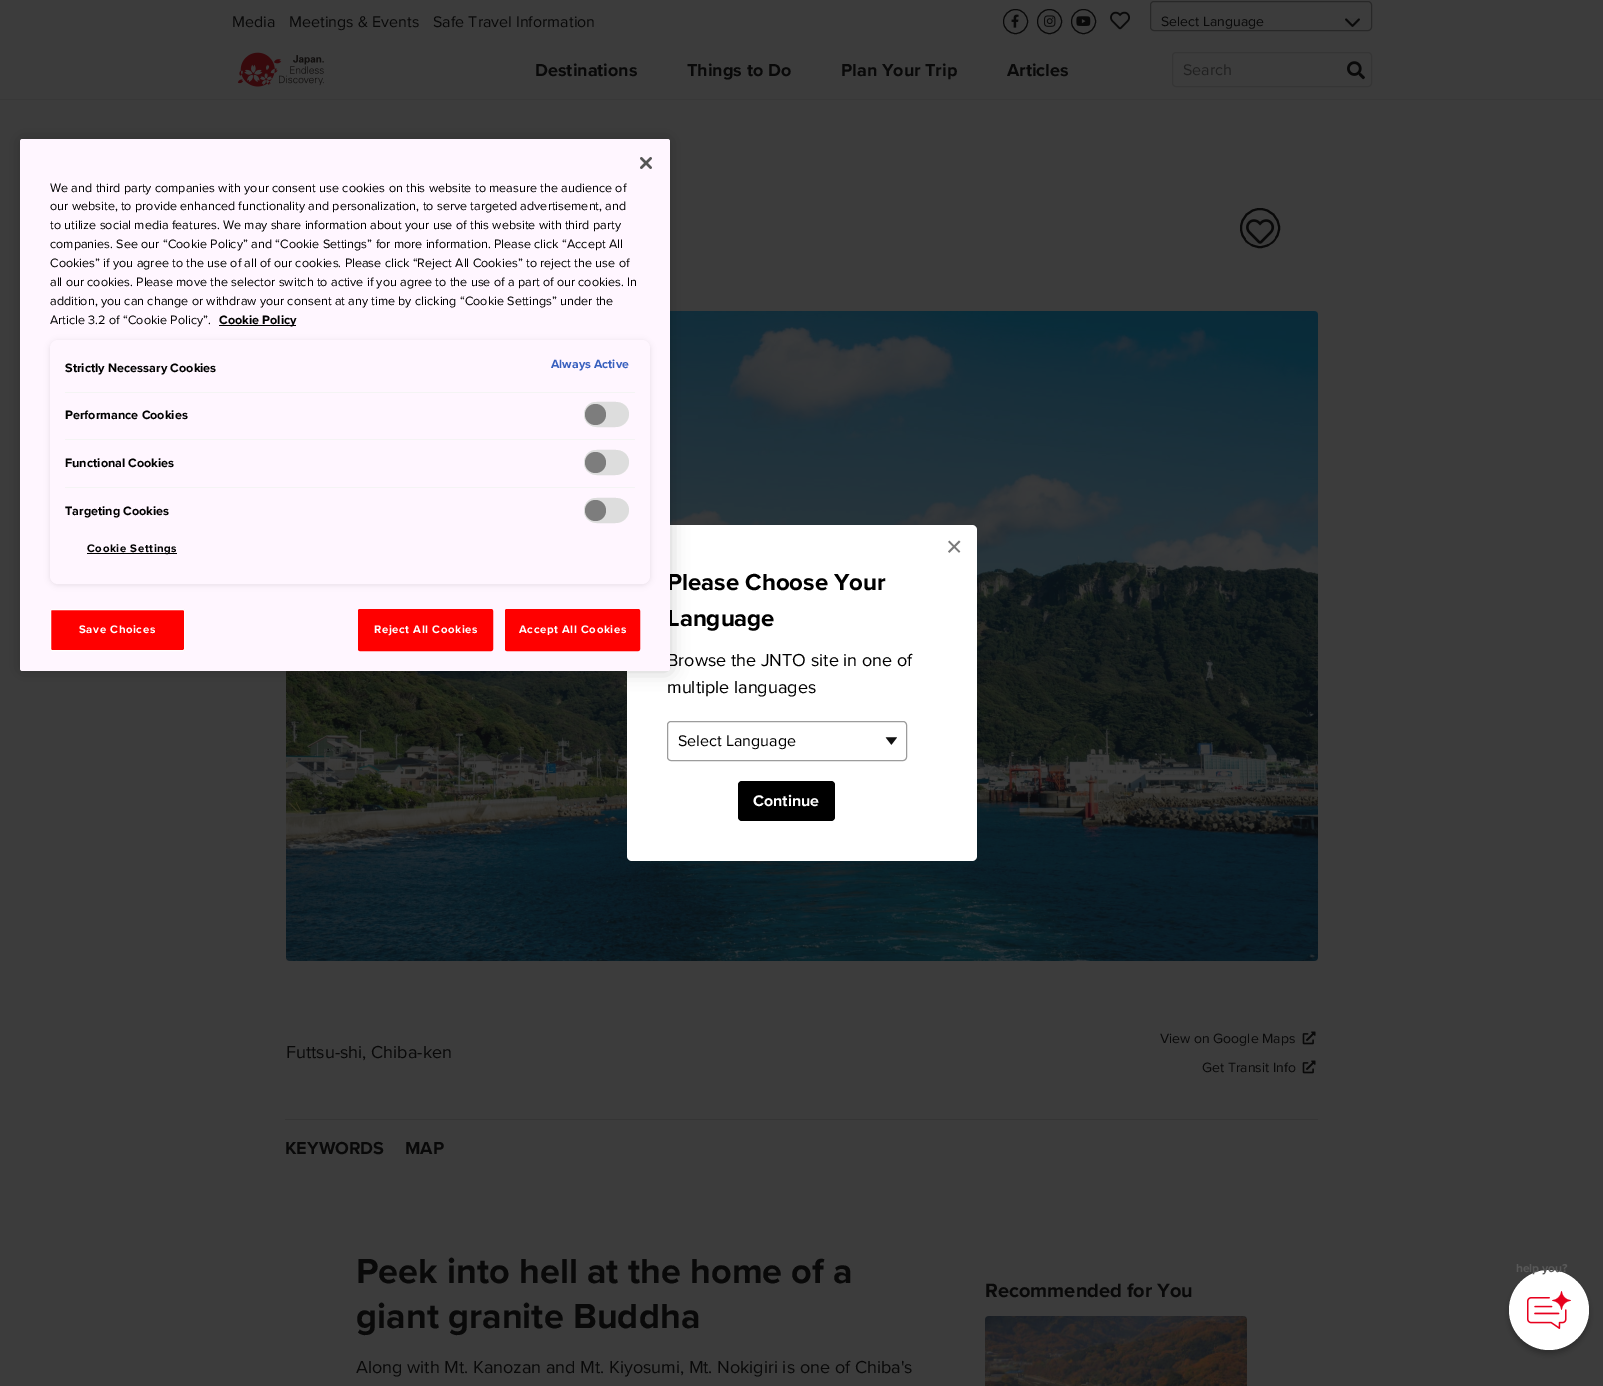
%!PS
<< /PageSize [1603 1386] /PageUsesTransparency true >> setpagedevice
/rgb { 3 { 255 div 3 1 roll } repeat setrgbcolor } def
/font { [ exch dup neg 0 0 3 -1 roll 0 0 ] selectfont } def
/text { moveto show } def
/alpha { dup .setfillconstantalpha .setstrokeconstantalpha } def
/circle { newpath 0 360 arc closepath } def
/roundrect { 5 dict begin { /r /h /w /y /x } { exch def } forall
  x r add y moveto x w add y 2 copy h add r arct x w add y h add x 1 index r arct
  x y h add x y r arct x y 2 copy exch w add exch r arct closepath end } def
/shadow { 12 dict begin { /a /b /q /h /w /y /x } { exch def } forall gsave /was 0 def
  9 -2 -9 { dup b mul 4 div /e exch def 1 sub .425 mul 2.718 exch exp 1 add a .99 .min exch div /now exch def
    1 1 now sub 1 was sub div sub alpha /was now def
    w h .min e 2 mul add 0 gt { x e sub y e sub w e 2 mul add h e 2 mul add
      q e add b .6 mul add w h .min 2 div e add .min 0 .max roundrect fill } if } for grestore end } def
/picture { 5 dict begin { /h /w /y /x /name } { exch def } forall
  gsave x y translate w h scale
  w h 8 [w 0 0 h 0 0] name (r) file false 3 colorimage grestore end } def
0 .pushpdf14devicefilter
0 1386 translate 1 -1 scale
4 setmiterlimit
60 60 60 rgb
0 0 1603 1386 rectfill
9 9 9 rgb
1015.5 21.5 12 circle stroke
(img_01.rgb) 1011 14 8 14 picture
1049.5 21.5 12 circle stroke
(img_02.rgb) 1044 15 12 12 picture
1083.5 21.5 12 circle stroke
(img_03.rgb) 1076 16 15 10 picture
(img_04.rgb) 1110 11 20 19 picture
40 40 40 rgb
1150.5 1.5 221 29 3.5 roundrect stroke
(img_05.rgb) 1345 18 15 9 picture
56 56 56 rgb
0 99 1603 1 rectfill
(img_06.rgb) 237 52 87 35 picture
53 53 53 rgb
1172.5 52.5 199 34 3.5 roundrect stroke
(img_07.rgb) 1347 61 18 19 picture
9 9 9 rgb
2 setlinewidth
1260 228 19 circle stroke
(img_08.rgb) 1246 219 29 25 picture
(img_09.rgb) 286 311 1032 650 picture
(img_10.rgb) 1302 1031 14 14 picture
(img_10.rgb) 1302 1060 14 14 picture
53 53 53 rgb
285 1119 1033 1 rectfill
(img_11.rgb) 985 1316 262 70 picture
255 255 255 rgb
627 525 350 336 5 roundrect fill
0 0 0 rgb
20 139 650 532 2.5 9 0.2 shadow
(img_13.rgb) 885 737 12 8 picture
156 156 156 rgb
1 setlinewidth
667.5 721.5 239 39 3.5 roundrect stroke
0 0 0 rgb
738 781 97 40 4 roundrect fill
1509 1274 80 80 40 3 0.25 shadow
255 255 255 rgb
1549 1310 40 circle fill
(img_14.rgb) 1527 1291 44 38 picture
/ProximaNova-Regular 16 font
9 9 9 rgb
(Media) 232 27 text
(Meetings & Events) 289 27 text
(Safe Travel Information) 433 27 text
/ProximaNova-Regular 14 font
(Select Language) 1161 26 text
/ProximaNova-Bold 18 font
(Destinations) 535 76 text
(Things to Do) 687 76 text
(Plan Your Trip) 841 76 text
(Articles) 1007 76 text
/ProximaNova-Regular 16 font
32 32 32 rgb
(Search) 1183 75 text
/ProximaNova-Regular 18 font
9 9 9 rgb
(Futtsu-shi, Chiba-ken) 286 1058 text
/ProximaNova-Regular 14 font
(View on Google Maps) 1160 1043 text
(Get Transit Info) 1202 1072 text
/ProximaNova-Bold 18 font
(KEYWORDS) 285 1154 text
(MAP) 405 1154 text
/ProximaNova-Bold 36 font
(Peek into hell at the home of a) 356 1283 text
(giant granite Buddha) 356 1328 text
/ProximaNova-Regular 18 font
(Along with Mt. Kanozan and Mt. Kiyosumi, Mt. Nokigiri is one of Chiba's) 356 1373 text
/ProximaNova-Bold 20 font
(Recommended for You) 985 1297 text
/LiberationSans-Regular 28 font
122 122 122 rgb
(×) 946 556 text
/ProximaNova-Bold 24 font
0 0 0 rgb
(Please Choose Your) 667 590 text
(Language) 667 626 text
/ProximaNova-Regular 18 font
(Browse the JNTO site in one of) 667 666 text
255 246 255 rgb
20 139 650 532 2.5 roundrect fill
0 0 0 rgb
50 341 600 244 8 3 0.1 shadow
255 246 255 rgb
50 340 600 244 8 roundrect fill
242 241 241 rgb
584 498 45 25 12.5 roundrect fill
221 221 221 rgb
596 498 moveto 7 0 20 -1 25 1 rcurveto 13 5 9 23 -5 24 rcurveto -5 0 -20 1 -24 -1 rcurveto -13 -5 -9 -24 4 -24 rcurveto closepath fill
125 125 125 rgb
595.5 510.5 10.5 circle fill
242 241 241 rgb
584 450 45 25 12.5 roundrect fill
221 221 221 rgb
596 450 moveto 7 0 20 -1 25 1 rcurveto 13 5 9 23 -5 24 rcurveto -5 0 -20 1 -24 -1 rcurveto -13 -5 -9 -24 4 -24 rcurveto closepath fill
125 125 125 rgb
595.5 462.5 10.5 circle fill
242 241 241 rgb
584 402 45 25 12.5 roundrect fill
221 221 221 rgb
596 402 moveto 7 0 20 -1 25 1 rcurveto 13 5 9 23 -5 24 rcurveto -5 0 -20 1 -24 -1 rcurveto -13 -5 -9 -24 4 -24 rcurveto closepath fill
125 125 125 rgb
595.5 414.5 10.5 circle fill
(img_12.rgb) 640 157 12 12 picture
/ProximaNova-Bold 12.25 font
56 96 190 rgb
(Always Active) 551 368 text
/ProximaNova-Bold 12.6 font
0 0 0 rgb
(Targeting Cookies) 65 515 text
(Functional Cookies) 65 467 text
(Performance Cookies) 65 419 text
(Strictly Necessary Cookies) 65 372 text
87 553 90 1 rectfill
/ProximaNova-Bold 11.4 font
87 552 moveto 0.6 0 (Cookie Settings) ashow
244 244 244 rgb
65 487 570 1 rectfill
65 439 570 1 rectfill
65 392 570 1 rectfill
255 0 0 rgb
505.5 609.5 134 41 1.5 roundrect gsave fill grestore
stroke
255 255 255 rgb
519 633 moveto 0.6 0 (Accept All Cookies) ashow
255 0 0 rgb
358.5 609.5 134 41 1.5 roundrect gsave fill grestore
stroke
255 255 255 rgb
374 633 moveto 0.6 0 (Reject All Cookies) ashow
255 0 0 rgb
50.5 609.5 134 41 1.5 roundrect gsave fill grestore
255 255 255 rgb
stroke
79 633 moveto 0.6 0 (Save Choices) ashow
0 0 0 rgb
219 325 77 1 rectfill
/ProximaNova-Bold 12.6 font
(Cookie Policy) 219 324 text
/ProximaNova-Regular 12.6 font
(Article 3.2 of “Cookie Policy”.) 50 324 text
(addition, you can change or withdraw your consent at any time by clicking “Cookie Settings” under the) 50 305 text
(all our cookies. Please move the selector switch to active if you agree to the use of a part of our cookies. In) 50 286 text
(Cookies” if you agree to the use of all of our cookies. Please click “Reject All Cookies” to reject the use of) 50 267 text
(companies. See our “Cookie Policy” and “Cookie Settings” for more information. Please click “Accept All) 50 248 text
(to utilize social media features. We may share information about your use of this website with third party) 50 229 text
(our website, to provide enhanced functionality and personalization, to serve targeted advertisement, and) 50 210 text
(We and third party companies with your consent use cookies on this website to measure the audience of) 50 192 text
/ProximaNova-Regular 18 font
(multiple languages) 667 693 text
/ProximaNova-Regular 16 font
(Select Language) 678 746 text
/ProximaNova-Bold 16 font
255 255 255 rgb
(Continue) 753 806 text
/ProximaNova-Bold 12 font
88 88 88 rgb
1516 1272 moveto -0.1 0 (help you?) ashow
.poppdf14devicefilter showpage
